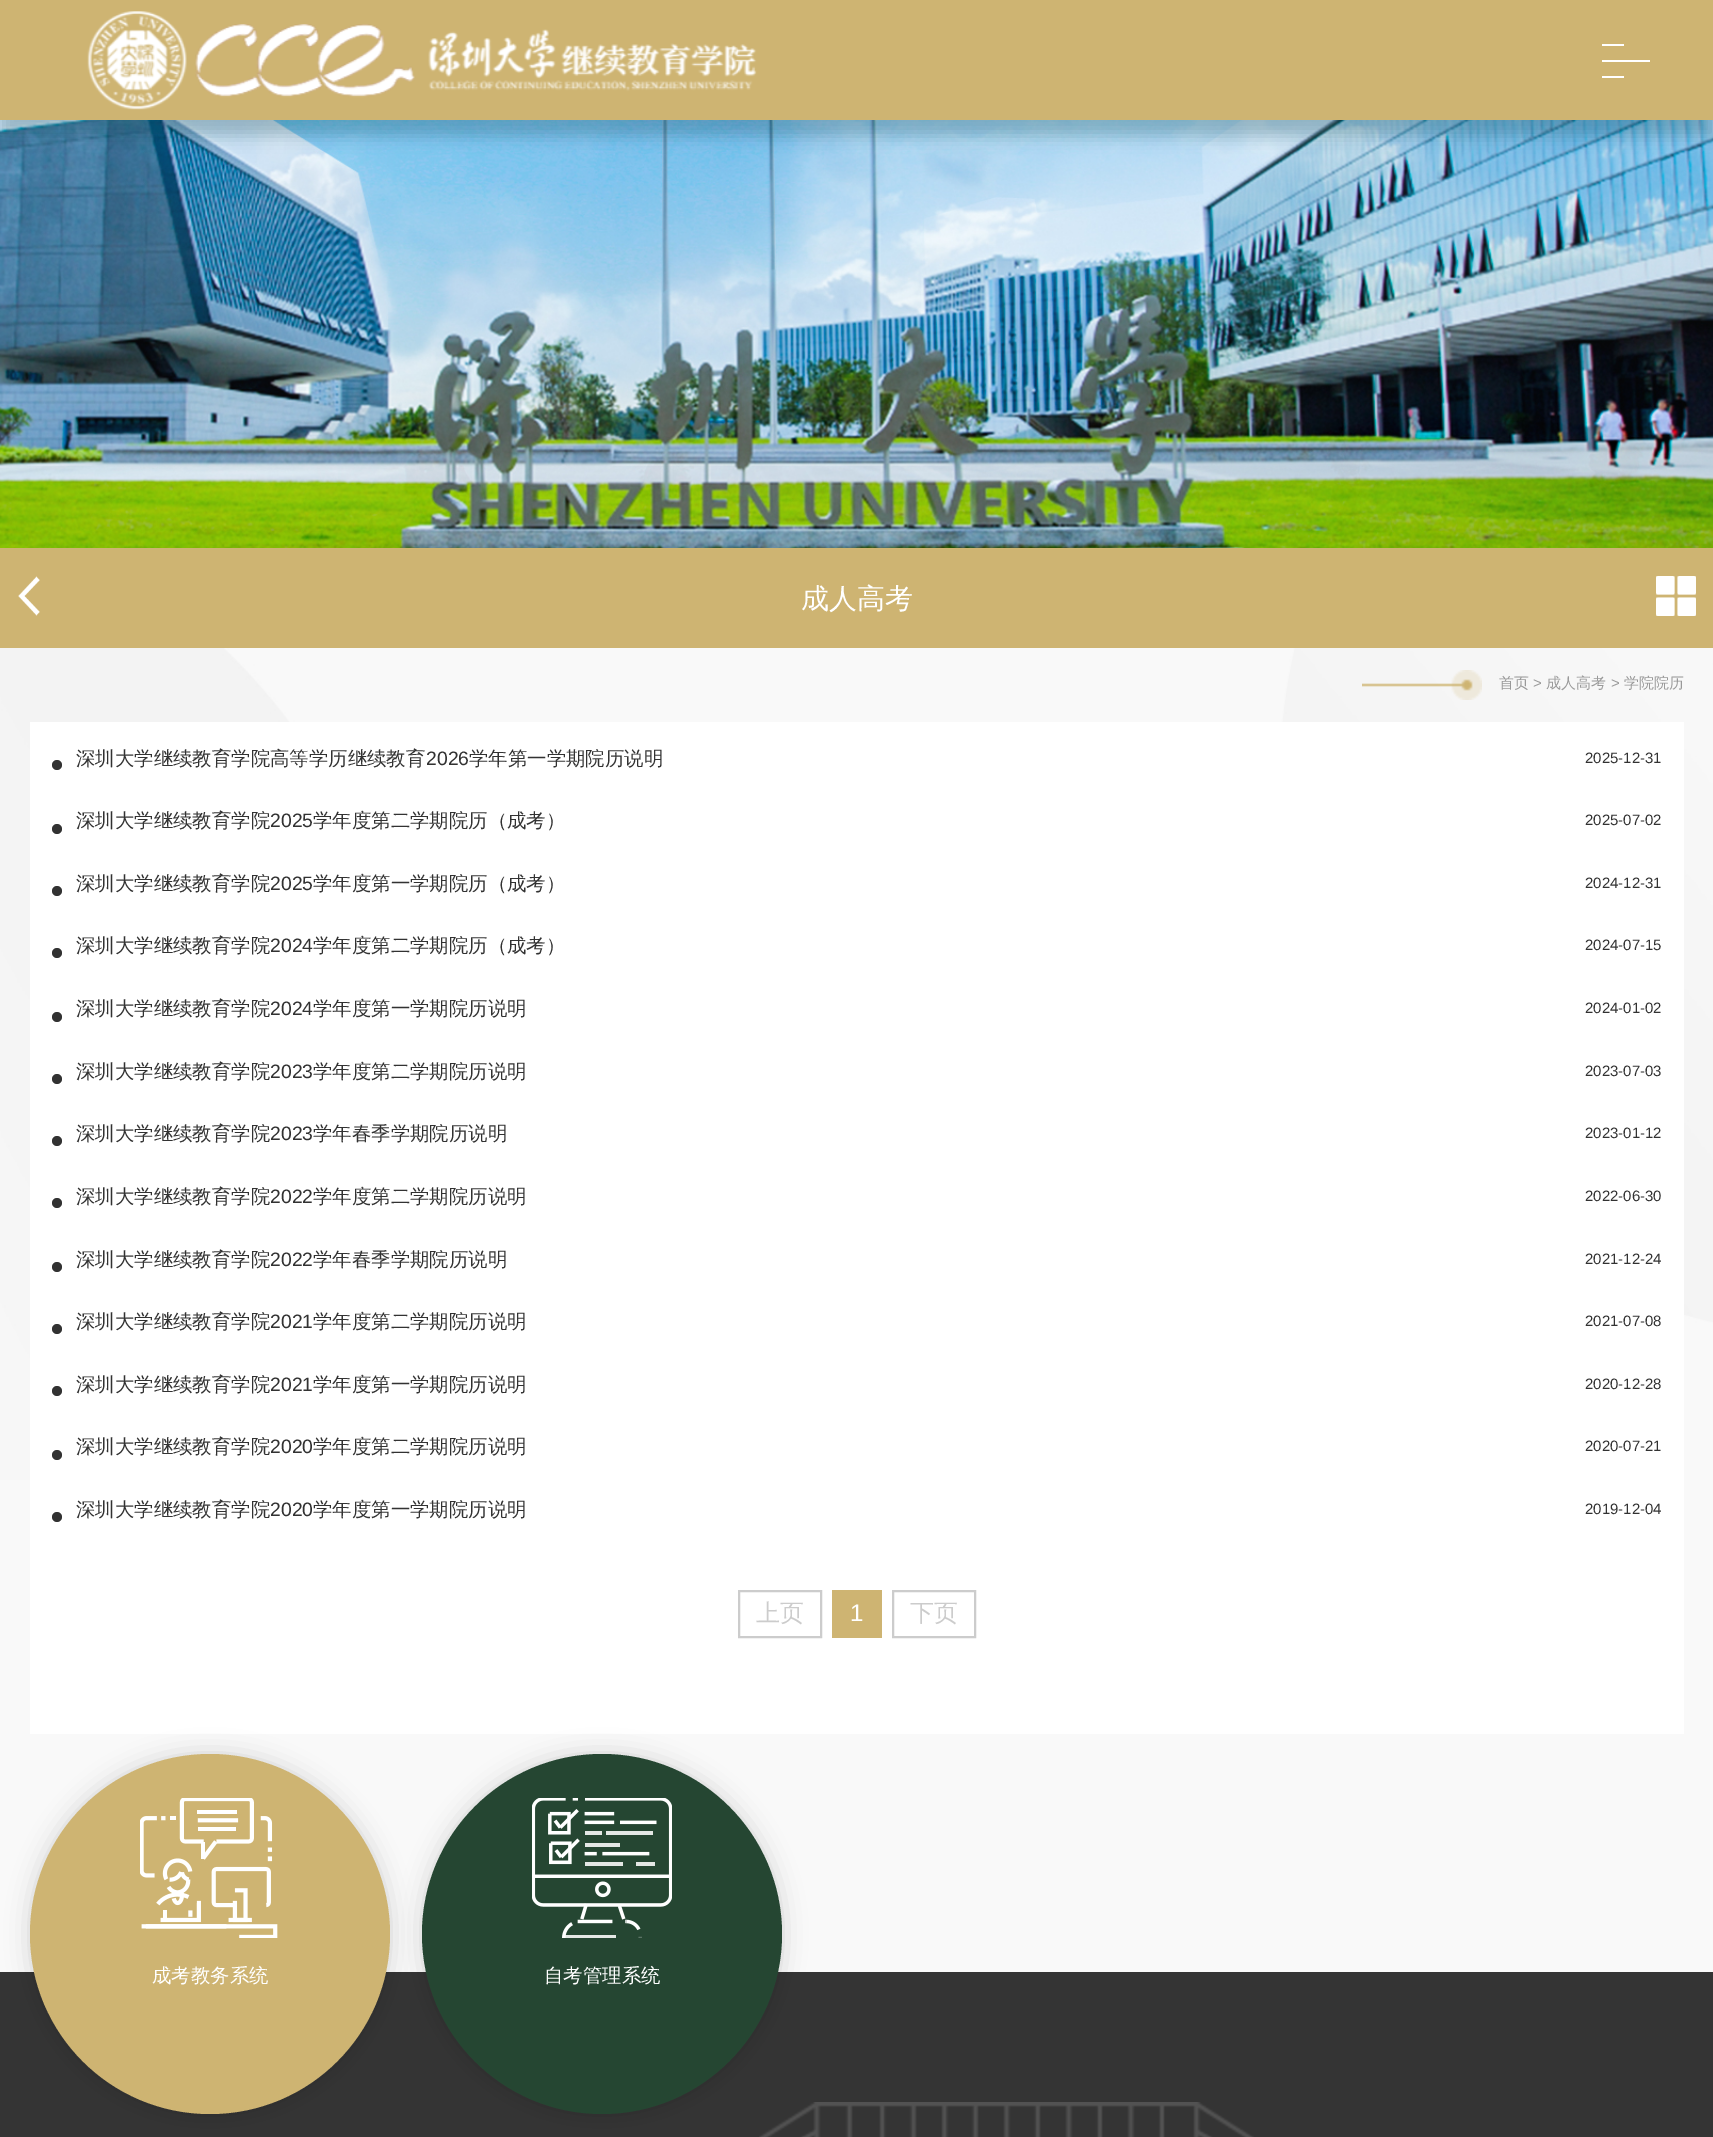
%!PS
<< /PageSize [1713 2137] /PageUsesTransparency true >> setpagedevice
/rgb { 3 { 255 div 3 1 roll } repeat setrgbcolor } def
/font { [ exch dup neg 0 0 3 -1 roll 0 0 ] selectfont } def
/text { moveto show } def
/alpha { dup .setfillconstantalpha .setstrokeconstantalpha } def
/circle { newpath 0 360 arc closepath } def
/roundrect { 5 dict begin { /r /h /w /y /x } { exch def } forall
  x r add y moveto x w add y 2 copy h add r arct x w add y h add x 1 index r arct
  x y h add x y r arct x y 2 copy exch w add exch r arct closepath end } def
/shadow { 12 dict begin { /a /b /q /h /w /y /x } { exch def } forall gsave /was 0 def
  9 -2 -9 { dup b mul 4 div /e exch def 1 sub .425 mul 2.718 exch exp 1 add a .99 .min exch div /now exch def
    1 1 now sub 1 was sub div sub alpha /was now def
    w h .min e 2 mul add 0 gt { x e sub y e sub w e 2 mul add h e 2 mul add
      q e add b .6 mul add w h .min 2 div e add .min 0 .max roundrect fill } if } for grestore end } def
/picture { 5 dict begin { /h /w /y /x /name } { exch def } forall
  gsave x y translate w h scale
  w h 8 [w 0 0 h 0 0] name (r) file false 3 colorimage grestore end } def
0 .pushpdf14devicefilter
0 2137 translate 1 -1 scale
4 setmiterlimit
249 249 249 rgb
0 0 1713 2137 rectfill
(img_02.rgb) 0 120 1713 428 picture
0 55 59 rgb
0 16 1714 120 0 8 0.25 shadow
206 180 114 rgb
0 0 1713 120 rectfill
(img_01.rgb) 87 11 670 99 picture
255 255 255 rgb
1602 60 48 2 rectfill
1602 44 22 2 rectfill
1602 76 22 2 rectfill
206 180 114 rgb
0 548 1713 100 rectfill
(img_03.rgb) 18 576 22 40 picture
(img_04.rgb) 1656 576 40 40 picture
(img_05.rgb) 0 648 1713 832 picture
(img_06.rgb) 1362 670 120 30 picture
255 255 255 rgb
30 722 1654 1012 rectfill
50 50 50 rgb
57 765 5 circle fill
57 829 5 circle fill
57 891 5 circle fill
57 953 5 circle fill
57 1017 5 circle fill
57 1079 5 circle fill
57 1141 5 circle fill
57 1203 5 circle fill
57 1267 5 circle fill
57 1329 5 circle fill
57 1391 5 circle fill
57 1455 5 circle fill
57 1517 5 circle fill
204 204 204 rgb
2 setlinewidth
739 1591 82 46 rectstroke
206 180 114 rgb
832 1590 50 48 rectfill
204 204 204 rgb
893 1591 82 46 rectstroke
52 52 52 rgb
0 1972 1713 165 rectfill
0 0 0 rgb
30 1754 360 360 180 12 0.16 shadow
206 180 114 rgb
210 1934 180 circle fill
(img_07.rgb) 140 1798 138 140 picture
0 0 0 rgb
422 1754 360 360 180 12 0.16 shadow
37 70 50 rgb
602 1934 180 circle fill
(img_08.rgb) 532 1798 140 140 picture
(img_09.rgb) 759 2102 495 35 picture
/WenQuanYiZenHei-Medium 28 font
255 255 255 rgb
(成人高考) 801 608 text
/WenQuanYiZenHei-Medium 15 font
153 153 153 rgb
(首页) 1499 688 text
/LiberationSans-Regular 15 font
(>) 1533 688 text
/WenQuanYiZenHei-Medium 15 font
(成人高考) 1546 688 text
/LiberationSans-Regular 15 font
(>) 1611 688 text
/WenQuanYiZenHei-Medium 15 font
(学院院历) 1624 688 text
/WenQuanYiZenHei-Medium 19.4 font
50 50 50 rgb
(深圳大学继续教育学院高等学历继续教育) 76 765 text
/LiberationSans-Regular 19.4 font
(2026) 426 765 text
/WenQuanYiZenHei-Medium 19.4 font
(学年第一学期院历说明) 469 765 text
/LiberationSans-Regular 15 font
(2025-12-31) 1585 763 text
/WenQuanYiZenHei-Medium 19.4 font
(深圳大学继续教育学院) 76 827 text
/LiberationSans-Regular 19.4 font
(2025) 270 827 text
/WenQuanYiZenHei-Medium 19.4 font
(学年度第二学期院历（成考）) 313 827 text
/LiberationSans-Regular 15 font
(2025-07-02) 1585 825 text
/WenQuanYiZenHei-Medium 19.4 font
(深圳大学继续教育学院) 76 890 text
/LiberationSans-Regular 19.4 font
(2025) 270 890 text
/WenQuanYiZenHei-Medium 19.4 font
(学年度第一学期院历（成考）) 313 890 text
/LiberationSans-Regular 15 font
(2024-12-31) 1585 888 text
/WenQuanYiZenHei-Medium 19.4 font
(深圳大学继续教育学院) 76 952 text
/LiberationSans-Regular 19.4 font
(2024) 270 952 text
/WenQuanYiZenHei-Medium 19.4 font
(学年度第二学期院历（成考）) 313 952 text
/LiberationSans-Regular 15 font
(2024-07-15) 1585 950 text
/WenQuanYiZenHei-Medium 19.4 font
(深圳大学继续教育学院) 76 1015 text
/LiberationSans-Regular 19.4 font
(2024) 270 1015 text
/WenQuanYiZenHei-Medium 19.4 font
(学年度第一学期院历说明) 313 1015 text
/LiberationSans-Regular 15 font
(2024-01-02) 1585 1013 text
/WenQuanYiZenHei-Medium 19.4 font
(深圳大学继续教育学院) 76 1078 text
/LiberationSans-Regular 19.4 font
(2023) 270 1078 text
/WenQuanYiZenHei-Medium 19.4 font
(学年度第二学期院历说明) 313 1078 text
/LiberationSans-Regular 15 font
(2023-07-03) 1585 1076 text
/WenQuanYiZenHei-Medium 19.4 font
(深圳大学继续教育学院) 76 1140 text
/LiberationSans-Regular 19.4 font
(2023) 270 1140 text
/WenQuanYiZenHei-Medium 19.4 font
(学年春季学期院历说明) 313 1140 text
/LiberationSans-Regular 15 font
(2023-01-12) 1585 1138 text
/WenQuanYiZenHei-Medium 19.4 font
(深圳大学继续教育学院) 76 1203 text
/LiberationSans-Regular 19.4 font
(2022) 270 1203 text
/WenQuanYiZenHei-Medium 19.4 font
(学年度第二学期院历说明) 313 1203 text
/LiberationSans-Regular 15 font
(2022-06-30) 1585 1201 text
/WenQuanYiZenHei-Medium 19.4 font
(深圳大学继续教育学院) 76 1266 text
/LiberationSans-Regular 19.4 font
(2022) 270 1266 text
/WenQuanYiZenHei-Medium 19.4 font
(学年春季学期院历说明) 313 1266 text
/LiberationSans-Regular 15 font
(2021-12-24) 1585 1264 text
/WenQuanYiZenHei-Medium 19.4 font
(深圳大学继续教育学院) 76 1328 text
/LiberationSans-Regular 19.4 font
(2021) 270 1328 text
/WenQuanYiZenHei-Medium 19.4 font
(学年度第二学期院历说明) 313 1328 text
/LiberationSans-Regular 15 font
(2021-07-08) 1585 1326 text
/WenQuanYiZenHei-Medium 19.4 font
(深圳大学继续教育学院) 76 1391 text
/LiberationSans-Regular 19.4 font
(2021) 270 1391 text
/WenQuanYiZenHei-Medium 19.4 font
(学年度第一学期院历说明) 313 1391 text
/LiberationSans-Regular 15 font
(2020-12-28) 1585 1389 text
/WenQuanYiZenHei-Medium 19.4 font
(深圳大学继续教育学院) 76 1453 text
/LiberationSans-Regular 19.4 font
(2020) 270 1453 text
/WenQuanYiZenHei-Medium 19.4 font
(学年度第二学期院历说明) 313 1453 text
/LiberationSans-Regular 15 font
(2020-07-21) 1585 1451 text
/WenQuanYiZenHei-Medium 19.4 font
(深圳大学继续教育学院) 76 1516 text
/LiberationSans-Regular 19.4 font
(2020) 270 1516 text
/WenQuanYiZenHei-Medium 19.4 font
(学年度第一学期院历说明) 313 1516 text
/LiberationSans-Regular 15 font
(2019-12-04) 1585 1514 text
/WenQuanYiZenHei-Medium 24 font
204 204 204 rgb
(上页) 756 1621 text
/LiberationSans-Regular 24 font
255 255 255 rgb
(1) 850 1621 text
/WenQuanYiZenHei-Medium 24 font
204 204 204 rgb
(下页) 910 1621 text
/WenQuanYiZenHei-Medium 19.4 font
255 255 255 rgb
(成考教务系统) 152 1982 text
(自考管理系统) 544 1982 text
.poppdf14devicefilter showpage
